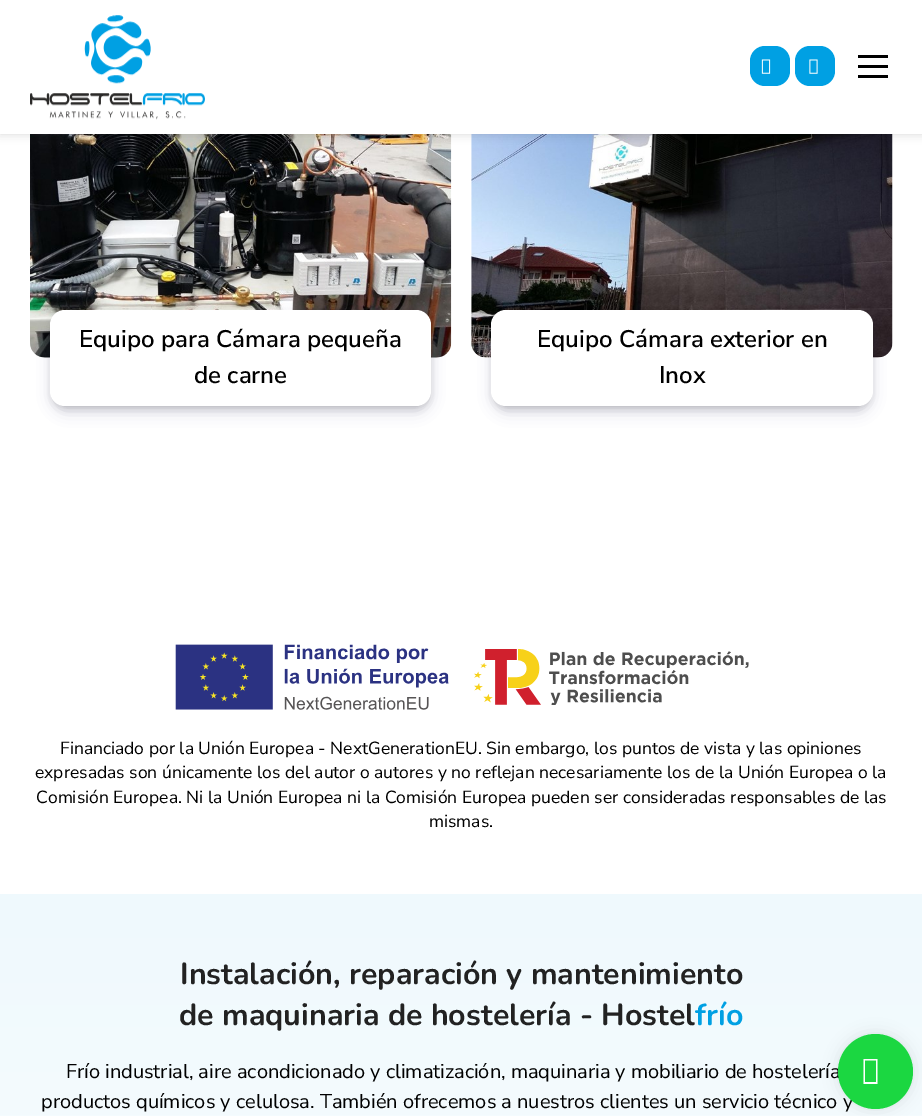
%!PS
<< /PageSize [922 1116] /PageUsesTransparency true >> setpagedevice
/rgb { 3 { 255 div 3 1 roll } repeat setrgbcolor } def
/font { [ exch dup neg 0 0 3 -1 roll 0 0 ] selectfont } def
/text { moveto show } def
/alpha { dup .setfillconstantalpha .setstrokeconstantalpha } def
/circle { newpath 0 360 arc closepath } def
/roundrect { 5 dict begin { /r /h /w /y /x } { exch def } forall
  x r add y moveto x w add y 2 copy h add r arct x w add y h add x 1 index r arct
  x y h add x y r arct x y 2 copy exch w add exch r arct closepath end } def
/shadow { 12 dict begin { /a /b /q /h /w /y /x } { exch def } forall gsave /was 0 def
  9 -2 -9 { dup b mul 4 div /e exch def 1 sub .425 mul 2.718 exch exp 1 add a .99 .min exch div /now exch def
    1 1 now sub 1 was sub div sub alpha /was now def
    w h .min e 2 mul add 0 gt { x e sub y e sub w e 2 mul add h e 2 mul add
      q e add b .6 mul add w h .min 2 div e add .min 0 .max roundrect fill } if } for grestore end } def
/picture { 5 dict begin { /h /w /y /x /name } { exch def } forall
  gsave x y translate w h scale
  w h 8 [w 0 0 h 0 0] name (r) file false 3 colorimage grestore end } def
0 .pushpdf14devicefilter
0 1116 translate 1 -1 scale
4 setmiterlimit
255 255 255 rgb
0 0 922 1116 rectfill
(img_04.rgb) 30 134 422 224 picture
(img_05.rgb) 471 134 422 224 picture
0 0 0 rgb
0 0 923 134 0 5 0.15 shadow
255 255 255 rgb
0 0 922 134 rectfill
(img_01.rgb) 30 15 175 105 picture
0 160 227 rgb
750 46 40 40 15 roundrect fill
(img_02.rgb) 761 59 10 15 picture
795 46 40 40 15 roundrect fill
(img_03.rgb) 809 59 9 15 picture
0 0 0 rgb
858 55 30 3 rectfill
858 65 30 3 rectfill
858 75 30 3 rectfill
54 318 374 88 11 4.5 0.25 shadow
50 50 93 rgb
53 320 376 91 13 7.5 0.2 shadow
255 255 255 rgb
50 310 381 96 15 roundrect fill
0 0 0 rgb
495 318 374 88 11 4.5 0.25 shadow
50 50 93 rgb
494 320 376 91 13 7.5 0.2 shadow
255 255 255 rgb
491 310 382 96 15 roundrect fill
(img_06.rgb) 175 644 274 66 picture
(img_07.rgb) 474 649 275 56 picture
gsave 0 894 moveto 922 0 rlineto 0 222 rlineto -922 0 rlineto closepath clip newpath
<< /ShadingType 2 /ColorSpace /DeviceRGB /Coords [461 894 461 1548] /Extend [true true] /Function << /FunctionType 2 /Domain [0 1] /C0 [0.937 0.976 0.992] /C1 [1 1 1] /N 1 >> >> shfill grestore
0 0 0 rgb
838 1034 75 75 37.5 7.5 0.1 shadow
/NunitoSans-SemiBold 24 font
(Equipo para Cámara pequeña) 79 347 text
(de carne) 194 383 text
(Equipo Cámara exterior en) 537 347 text
(Inox) 659 383 text
/NunitoSans-Regular 17.5 font
(Financiado por la Unión Europea - NextGenerationEU. Sin embargo, los puntos de vista y las opiniones) 60 754 text
(expresadas son únicamente los del autor o autores y no reflejan necesariamente los de la Unión Europea o la) 35 778 text
(Comisión Europea. Ni la Unión Europea ni la Comisión Europea pueden ser consideradas responsables de las) 36 803 text
(mismas.) 429 827 text
/Nunito-Bold 30.4 font
34 34 34 rgb
(Instalación, reparación y mantenimiento) 180 984 text
(de maquinaria de hostelería - Hostel) 179 1025 text
0 160 227 rgb
(frío) 695 1025 text
/NunitoSans-Regular 20 font
0 0 0 rgb
(Frío industrial, aire acondicionado y climatización, maquinaria y mobiliario de hostelería) 66 1078 text
(productos químicos y celulosa. También ofrecemos a nuestros clientes un servicio técnico y) 41 1108 text
27 215 65 rgb
875.5 1071.5 37.5 circle fill
255 255 255 rgb
863.5 1084 moveto 0 -25 rlineto 14 0 rlineto 0 25 rlineto closepath 865 1082 moveto 11 0 rlineto 0 -21.5 rlineto -11 0 rlineto closepath fill
.poppdf14devicefilter showpage
